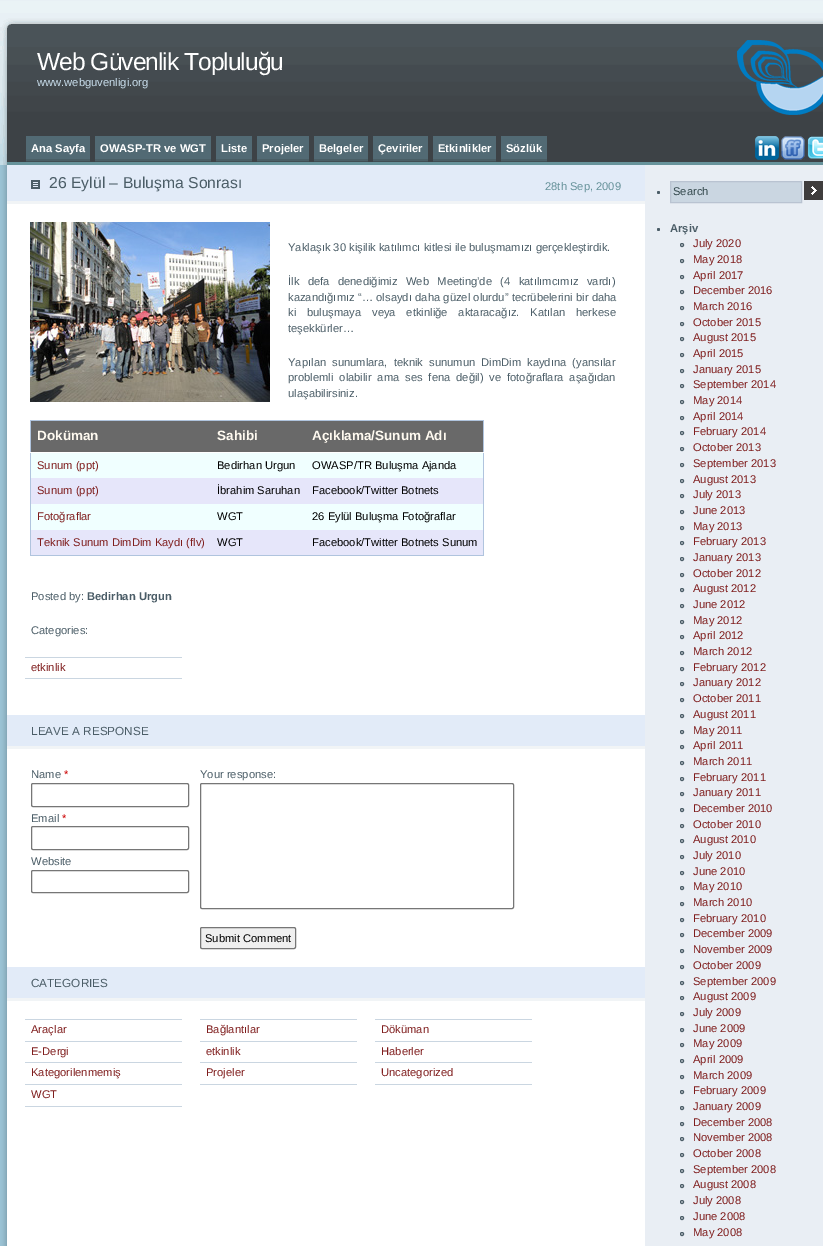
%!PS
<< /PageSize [823 1246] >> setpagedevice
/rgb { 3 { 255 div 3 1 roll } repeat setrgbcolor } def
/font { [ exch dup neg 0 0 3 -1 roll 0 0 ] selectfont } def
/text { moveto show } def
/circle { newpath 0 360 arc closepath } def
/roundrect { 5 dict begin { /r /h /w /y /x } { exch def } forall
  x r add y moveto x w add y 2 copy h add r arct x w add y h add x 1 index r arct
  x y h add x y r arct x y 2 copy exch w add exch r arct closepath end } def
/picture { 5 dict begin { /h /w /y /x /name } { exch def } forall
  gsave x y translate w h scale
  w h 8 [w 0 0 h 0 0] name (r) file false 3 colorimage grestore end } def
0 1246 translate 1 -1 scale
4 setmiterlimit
255 255 255 rgb
0 0 823 1246 rectfill
(img_01.rgb) 0 165 823 1081 picture
(img_02.rgb) 0 0 823 165 picture
(img_03.rgb) 737 40 86 75 picture
103 147 155 rgb
7 162 816 3 rectfill
(img_04.rgb) 755 136 24 24 picture
(img_05.rgb) 781 136 24 24 picture
(img_06.rgb) 807 136 16 23 picture
65 78 83 rgb
26 161 64 1 rectfill
82 106 116 rgb
26 136 64 23 rectfill
74 94 101 rgb
26 159 64 2 rectfill
65 78 83 rgb
95 161 116 1 rectfill
82 106 116 rgb
95 136 116 23 rectfill
74 94 101 rgb
95 159 116 2 rectfill
65 78 83 rgb
216 161 36 1 rectfill
82 106 116 rgb
216 136 36 23 rectfill
74 94 101 rgb
216 159 36 2 rectfill
65 78 83 rgb
257 161 52 1 rectfill
82 106 116 rgb
257 136 52 23 rectfill
74 94 101 rgb
257 159 52 2 rectfill
65 78 83 rgb
314 161 54 1 rectfill
82 106 116 rgb
314 136 54 23 rectfill
74 94 101 rgb
314 159 54 2 rectfill
65 78 83 rgb
373 161 55 1 rectfill
82 106 116 rgb
373 136 55 23 rectfill
74 94 101 rgb
373 159 55 2 rectfill
65 78 83 rgb
433 161 63 1 rectfill
82 106 116 rgb
433 136 63 23 rectfill
74 94 101 rgb
433 159 63 2 rectfill
65 78 83 rgb
501 161 46 1 rectfill
82 106 116 rgb
501 136 46 23 rectfill
74 94 101 rgb
501 159 46 2 rectfill
226 235 248 rgb
7 165 638 36 rectfill
241 244 246 rgb
7 201 638 3 rectfill
(img_07.rgb) 31 180 9 9 picture
(img_08.rgb) 30 222 240 180 picture
240 255 255 rgb
31 453 452 77 rectfill
176 196 222 rgb
30 420 454 1 rectfill
483 420 1 136 rectfill
30 555 454 1 rectfill
30 420 1 136 rectfill
105 105 105 rgb
31 421 452 31 rectfill
255 255 255 rgb
30 452 1 1 rectfill
483 452 1 1 rectfill
230 230 250 rgb
31 478 452 26 rectfill
31 530 452 25 rectfill
202 214 225 rgb
25 657 157 1 rectfill
25 678 157 1 rectfill
226 235 248 rgb
7 715 638 31 rectfill
241 244 246 rgb
7 746 638 3 rectfill
118 118 118 rgb
31.5 783.5 157 23 1.5 roundrect stroke
31.5 826.5 157 23 1.5 roundrect stroke
31.5 870.5 157 22 1.5 roundrect stroke
200.5 783.5 313 125 1.5 roundrect stroke
239 239 239 rgb
200.5 927.5 95 21 1.5 roundrect gsave fill grestore
118 118 118 rgb
stroke
226 235 248 rgb
7 967 638 31 rectfill
241 244 246 rgb
7 998 638 3 rectfill
202 214 225 rgb
25 1019 157 1 rectfill
25 1041 157 1 rectfill
200 1019 157 1 rectfill
200 1041 157 1 rectfill
375 1019 157 1 rectfill
375 1041 157 1 rectfill
25 1062 157 1 rectfill
200 1062 157 1 rectfill
375 1062 157 1 rectfill
25 1084 157 1 rectfill
200 1084 157 1 rectfill
375 1084 157 1 rectfill
25 1106 157 1 rectfill
75 93 103 rgb
658.5 192.5 1.5 circle fill
202 214 225 rgb
670.5 181.5 moveto 131 0 rlineto 0 21 rlineto -131 0 rlineto closepath gsave fill grestore
185 195 209 rgb
stroke
(img_09.rgb) 804 181 19 19 picture
75 93 103 rgb
658.5 229.5 1.5 circle fill
682 245 1.5 circle stroke
682 261 1.5 circle stroke
682 277 1.5 circle stroke
682 292 1.5 circle stroke
682 308 1.5 circle stroke
682 324 1.5 circle stroke
682 339 1.5 circle stroke
682 355 1.5 circle stroke
682 371 1.5 circle stroke
682 386 1.5 circle stroke
682 402 1.5 circle stroke
682 418 1.5 circle stroke
682 433 1.5 circle stroke
682 449 1.5 circle stroke
682 465 1.5 circle stroke
682 481 1.5 circle stroke
682 496 1.5 circle stroke
682 512 1.5 circle stroke
682 528 1.5 circle stroke
682 543 1.5 circle stroke
682 559 1.5 circle stroke
682 575 1.5 circle stroke
682 590 1.5 circle stroke
682 606 1.5 circle stroke
682 622 1.5 circle stroke
682 637 1.5 circle stroke
682 653 1.5 circle stroke
682 669 1.5 circle stroke
682 684 1.5 circle stroke
682 700 1.5 circle stroke
682 716 1.5 circle stroke
682 732 1.5 circle stroke
682 747 1.5 circle stroke
682 763 1.5 circle stroke
682 779 1.5 circle stroke
682 794 1.5 circle stroke
682 810 1.5 circle stroke
682 826 1.5 circle stroke
682 841 1.5 circle stroke
682 857 1.5 circle stroke
682 873 1.5 circle stroke
682 888 1.5 circle stroke
682 904 1.5 circle stroke
682 920 1.5 circle stroke
682 935 1.5 circle stroke
682 951 1.5 circle stroke
682 967 1.5 circle stroke
682 983 1.5 circle stroke
682 998 1.5 circle stroke
682 1014 1.5 circle stroke
682 1030 1.5 circle stroke
682 1045 1.5 circle stroke
682 1061 1.5 circle stroke
682 1077 1.5 circle stroke
682 1092 1.5 circle stroke
682 1108 1.5 circle stroke
682 1124 1.5 circle stroke
682 1139 1.5 circle stroke
682 1155 1.5 circle stroke
682 1171 1.5 circle stroke
682 1186 1.5 circle stroke
682 1202 1.5 circle stroke
682 1218 1.5 circle stroke
682 1234 1.5 circle stroke
/LiberationSans-Regular 24.6 font
255 255 255 rgb
37 70 moveto -1 0 (Web Güvenlik Topluluğu) ashow
/LiberationSans-Regular 11.2 font
202 223 237 rgb
(www.webguvenligi.org) 37 86 text
/LiberationSans-Bold 11.2 font
255 255 255 rgb
(Ana Sayfa) 31 152 text
(OWASP-TR ve WGT) 100 152 text
(Liste) 221 152 text
(Projeler) 262 152 text
(Belgeler) 319 152 text
(Çeviriler) 378 152 text
(Etkinlikler) 438 152 text
(Sözlük) 506 152 text
/LiberationSans-Regular 15.75 font
75 93 103 rgb
(26 Eylül – Buluşma Sonrası) 49 188 text
/LiberationSans-Regular 11.2 font
103 147 155 rgb
(28th Sep, 2009) 545 190 text
75 93 103 rgb
(Yaklaşık 30 kişilik katılımcı kitlesi ile buluşmamızı gerçekleştirdik.) 288 251 text
288 285 moveto 5.25 0 32 (İlk defa denediğimiz Web Meeting’de \(4 katılımcımız vardı\)) widthshow
288 301 moveto 0.25 0 32 (kazandığımız “… olsaydı daha güzel olurdu” tecrübelerini bir daha) widthshow
288 316 moveto 7.75 0 32 (ki buluşmaya veya etkinliğe aktaracağız. Katılan herkese) widthshow
(teşekkürler…) 288 332 text
288 366 moveto 3 0 32 (Yapılan sunumlara, teknik sunumun DimDim kaydına \(yansılar) widthshow
288 381 moveto 2.75 0 32 (problemli olabilir ama ses fena değil\) ve fotoğraflara aşağıdan) widthshow
(ulaşabilirsiniz.) 288 397 text
/LiberationSans-Bold 13.5 font
255 250 240 rgb
(Doküman) 37 440 text
(Sahibi) 217 440 text
(Açıklama/Sunum Adı) 312 440 text
/LiberationSans-Regular 11.2 font
127 29 29 rgb
(Sunum \(ppt\)) 37 469 text
0 0 0 rgb
(Bedirhan Urgun) 217 469 text
(OWASP/TR Buluşma Ajanda) 312 469 text
127 29 29 rgb
(Sunum \(ppt\)) 37 494 text
0 0 0 rgb
(İbrahim Saruhan) 217 494 text
(Facebook/Twitter Botnets) 312 494 text
127 29 29 rgb
(Fotoğraflar) 37 520 text
0 0 0 rgb
(WGT) 217 520 text
(26 Eylül Buluşma Fotoğraflar) 312 520 text
127 29 29 rgb
(Teknik Sunum DimDim Kaydı \(flv\)) 37 546 text
0 0 0 rgb
(WGT) 217 546 text
(Facebook/Twitter Botnets Sunum) 312 546 text
75 93 103 rgb
(Posted by:) 31 600 text
/LiberationSans-Bold 11.2 font
(Bedirhan Urgun) 87 600 text
/LiberationSans-Regular 11.2 font
(Categories:) 31 634 text
127 29 29 rgb
(etkinlik) 31 671 text
/LiberationSans-Regular 11.75 font
75 93 103 rgb
(LEAVE A RESPONSE) 31 735 text
/LiberationSans-Regular 11.2 font
(Name) 31 778 text
204 0 0 rgb
(*) 64 778 text
75 93 103 rgb
(Email) 31 822 text
204 0 0 rgb
(*) 62 822 text
75 93 103 rgb
(Website) 31 865 text
(Your response:) 200 778 text
0 0 0 rgb
(Submit Comment) 205 942 text
/LiberationSans-Regular 11.75 font
75 93 103 rgb
(CATEGORIES) 31 987 text
/LiberationSans-Regular 11.2 font
127 29 29 rgb
(Araçlar) 31 1033 text
(Bağlantılar) 206 1033 text
(Döküman) 381 1033 text
(E-Dergi) 31 1055 text
(etkinlik) 206 1055 text
(Haberler) 381 1055 text
(Kategorilenmemiş) 31 1076 text
(Projeler) 206 1076 text
(Uncategorized) 381 1076 text
(WGT) 31 1098 text
50 71 75 rgb
(Search) 673 195 text
/LiberationSans-Bold 11.2 font
75 93 103 rgb
(Arşiv) 670 232 text
/LiberationSans-Regular 11.2 font
127 29 29 rgb
(July 2020) 693 247 text
(May 2018) 693 263 text
(April 2017) 693 279 text
(December 2016) 693 294 text
(March 2016) 693 310 text
(October 2015) 693 326 text
(August 2015) 693 341 text
(April 2015) 693 357 text
(January 2015) 693 373 text
(September 2014) 693 388 text
(May 2014) 693 404 text
(April 2014) 693 420 text
(February 2014) 693 435 text
(October 2013) 693 451 text
(September 2013) 693 467 text
(August 2013) 693 483 text
(July 2013) 693 498 text
(June 2013) 693 514 text
(May 2013) 693 530 text
(February 2013) 693 545 text
(January 2013) 693 561 text
(October 2012) 693 577 text
(August 2012) 693 592 text
(June 2012) 693 608 text
(May 2012) 693 624 text
(April 2012) 693 639 text
(March 2012) 693 655 text
(February 2012) 693 671 text
(January 2012) 693 686 text
(October 2011) 693 702 text
(August 2011) 693 718 text
(May 2011) 693 734 text
(April 2011) 693 749 text
(March 2011) 693 765 text
(February 2011) 693 781 text
(January 2011) 693 796 text
(December 2010) 693 812 text
(October 2010) 693 828 text
(August 2010) 693 843 text
(July 2010) 693 859 text
(June 2010) 693 875 text
(May 2010) 693 890 text
(March 2010) 693 906 text
(February 2010) 693 922 text
(December 2009) 693 937 text
(November 2009) 693 953 text
(October 2009) 693 969 text
(September 2009) 693 985 text
(August 2009) 693 1000 text
(July 2009) 693 1016 text
(June 2009) 693 1032 text
(May 2009) 693 1047 text
(April 2009) 693 1063 text
(March 2009) 693 1079 text
(February 2009) 693 1094 text
(January 2009) 693 1110 text
(December 2008) 693 1126 text
(November 2008) 693 1141 text
(October 2008) 693 1157 text
(September 2008) 693 1173 text
(August 2008) 693 1188 text
(July 2008) 693 1204 text
(June 2008) 693 1220 text
(May 2008) 693 1236 text
showpage
